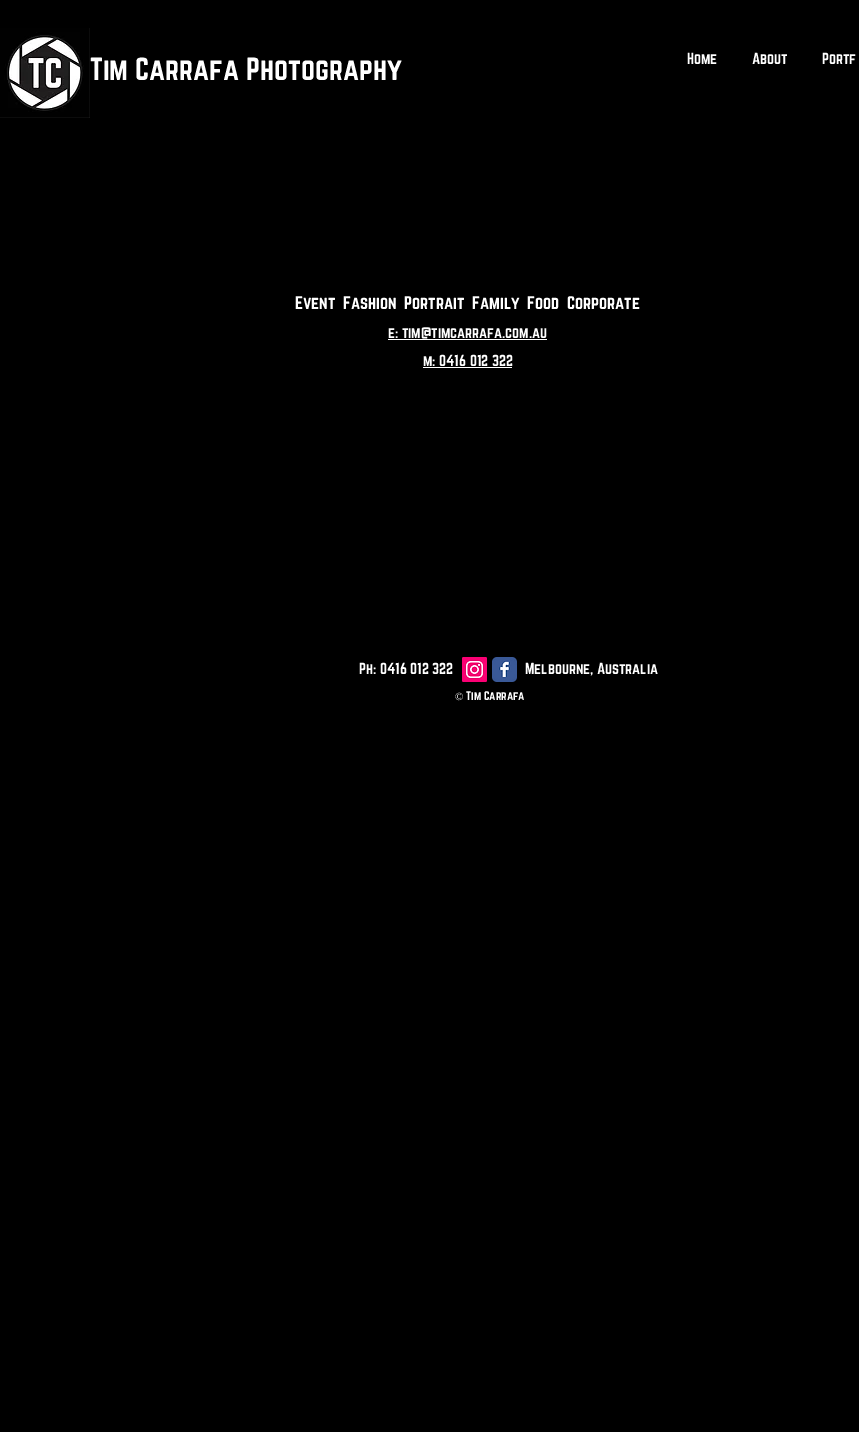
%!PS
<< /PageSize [859 1432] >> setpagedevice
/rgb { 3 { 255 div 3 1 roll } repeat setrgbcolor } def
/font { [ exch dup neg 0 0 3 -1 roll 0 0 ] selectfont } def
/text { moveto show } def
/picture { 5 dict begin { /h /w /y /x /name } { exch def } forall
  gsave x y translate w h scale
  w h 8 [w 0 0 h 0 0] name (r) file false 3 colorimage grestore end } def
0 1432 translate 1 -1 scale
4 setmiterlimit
0 0 0 rgb
0 0 859 1432 rectfill
(img_01.rgb) 0 28 90 90 picture
255 255 255 rgb
388 339 159 1 rectfill
423 367 89 1 rectfill
(img_02.rgb) 462 657 25 25 picture
(img_03.rgb) 492 657 25 25 picture
/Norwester-Regular 28 font
(Tim Carrafa Photography) 90 80 text
/Norwester-Regular 14 font
(Home) 687 64 text
(About) 752 64 text
(Portf) 822 64 text
/Norwester-Regular 16 font
(Event  Fashion  Portrait  Family  Food  Corporate) 295 309 text
/Norwester-Regular 14 font
(e: tim@timcarrafa.com.au) 388 338 text
(m: 0416 012 322) 423 366 text
(Ph: 0416 012 322) 359 674 text
(Melbourne, Australia) 525 674 text
/LiberationSerif-Regular 11 font
(©) 455 700 text
/Norwester-Regular 11 font
(Tim Carrafa) 466 700 text
showpage
